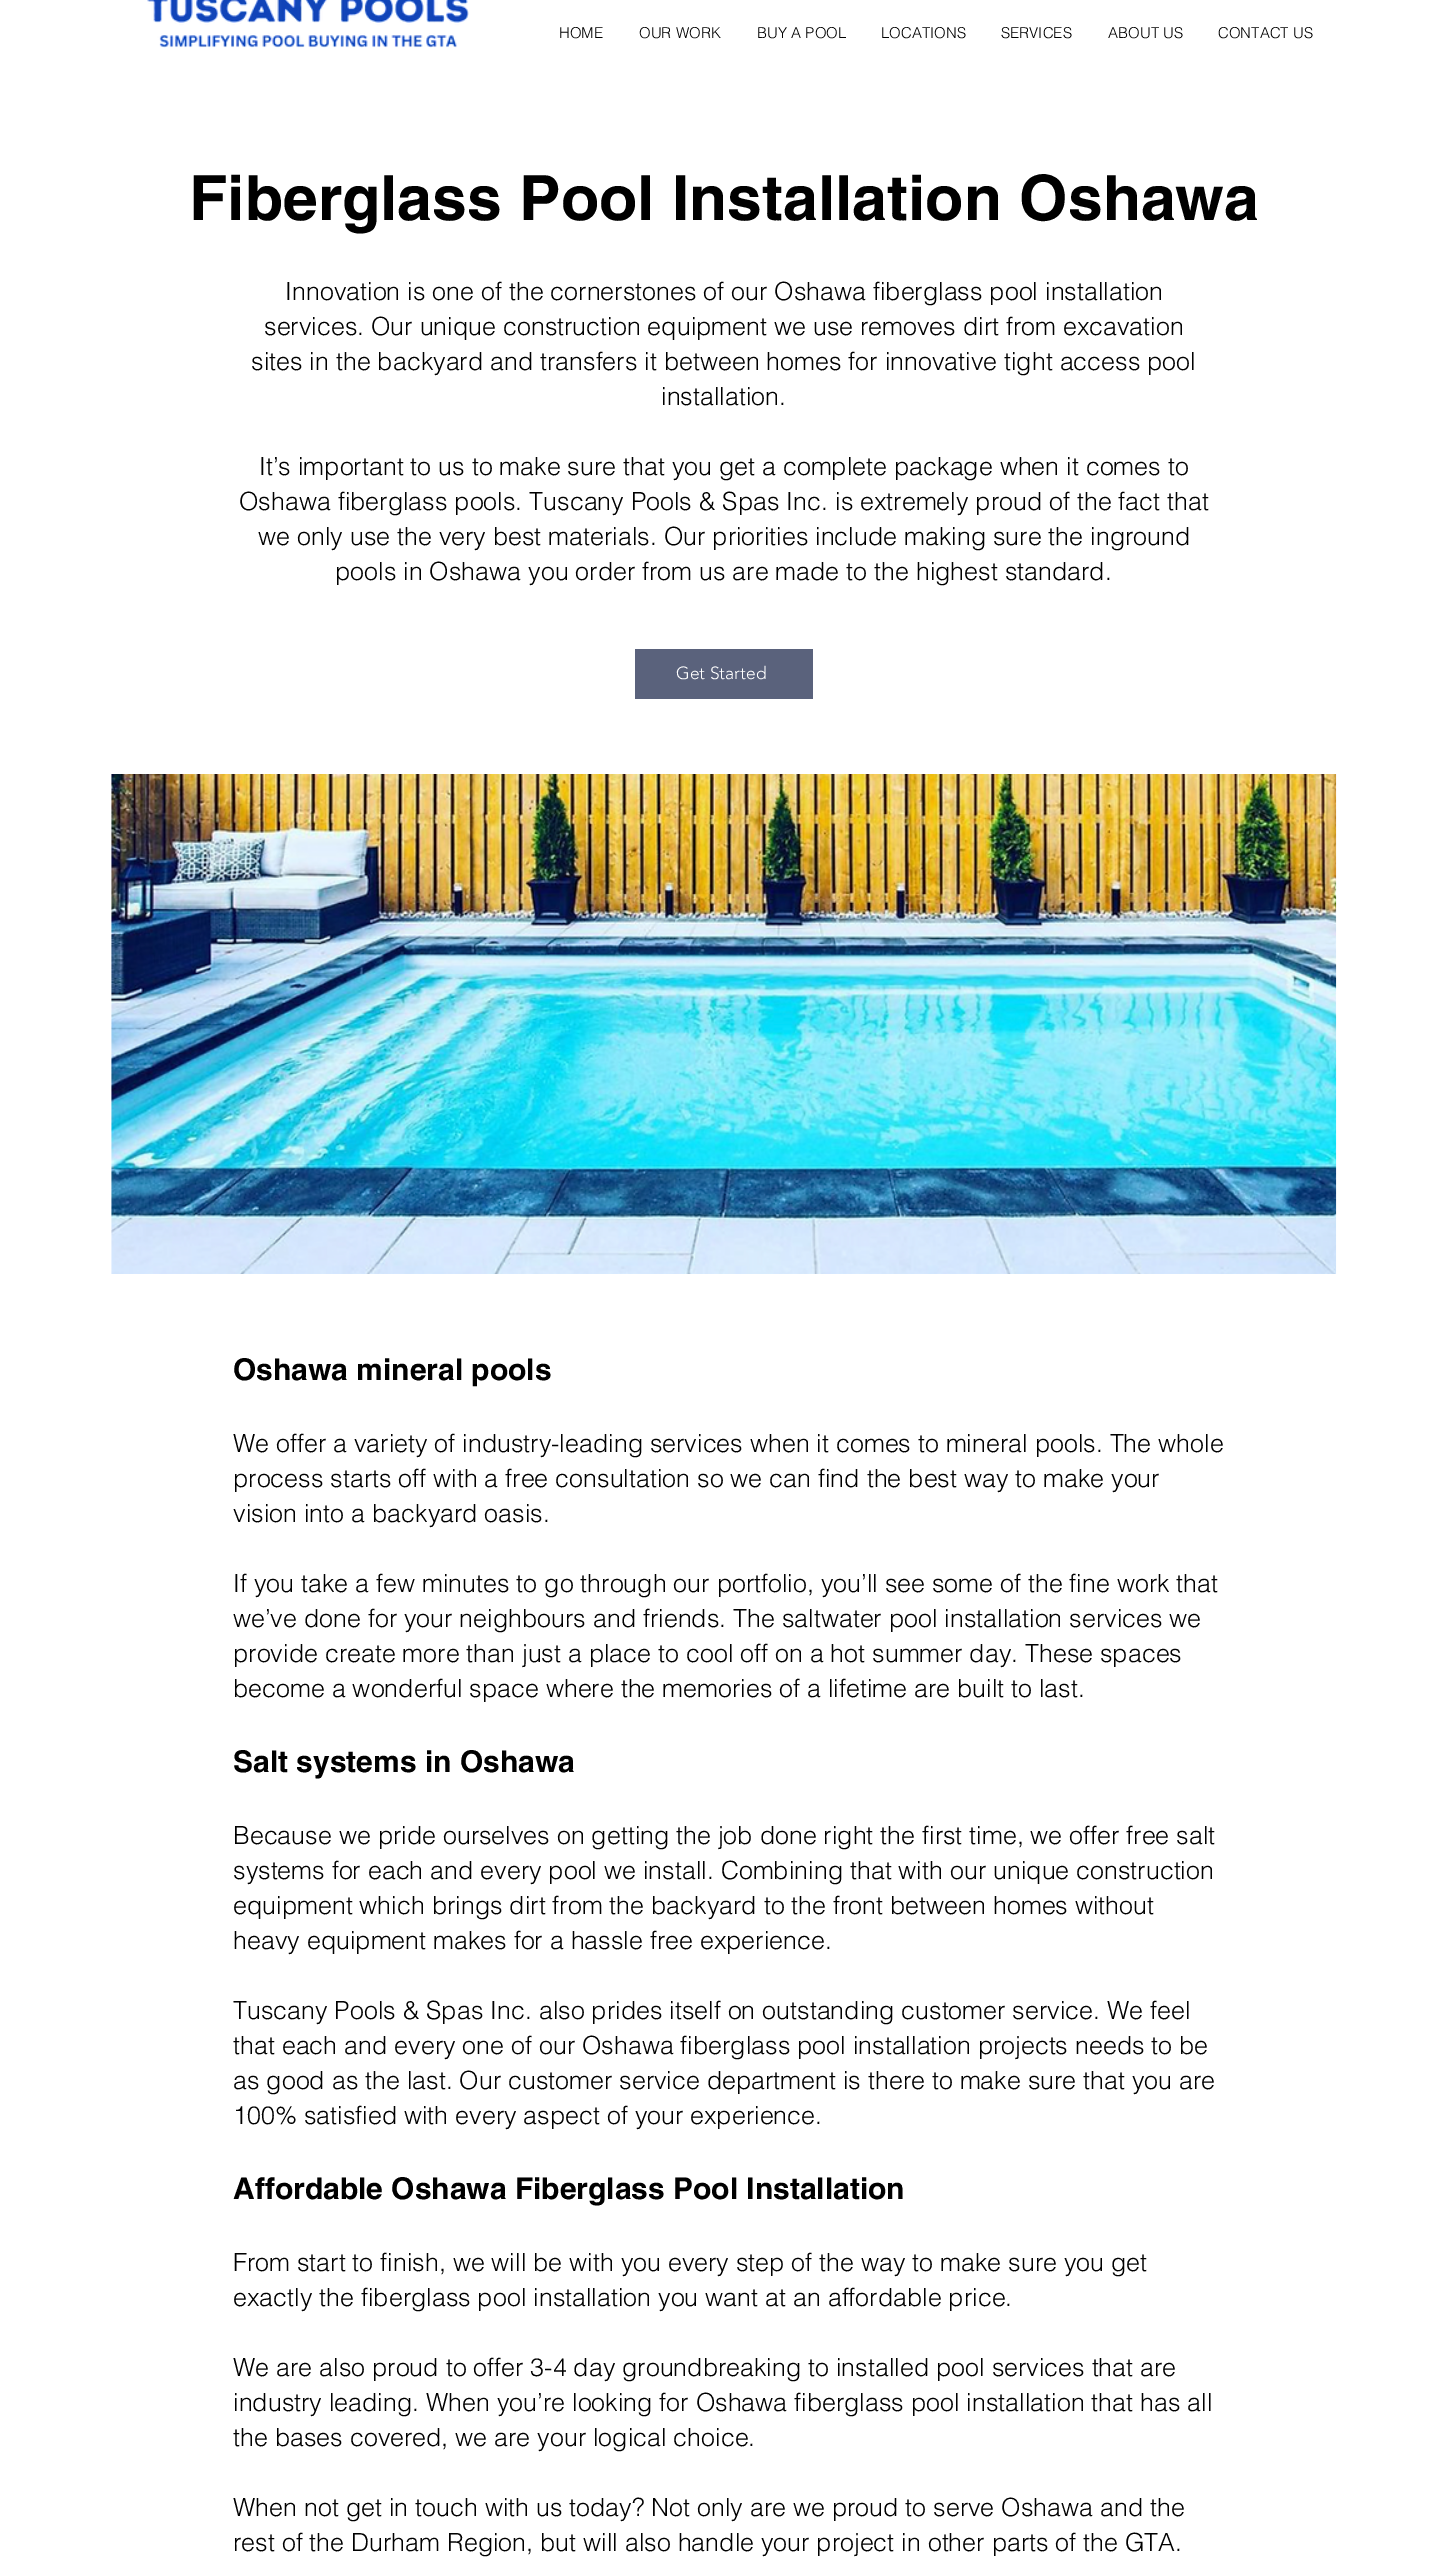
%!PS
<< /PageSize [1447 2557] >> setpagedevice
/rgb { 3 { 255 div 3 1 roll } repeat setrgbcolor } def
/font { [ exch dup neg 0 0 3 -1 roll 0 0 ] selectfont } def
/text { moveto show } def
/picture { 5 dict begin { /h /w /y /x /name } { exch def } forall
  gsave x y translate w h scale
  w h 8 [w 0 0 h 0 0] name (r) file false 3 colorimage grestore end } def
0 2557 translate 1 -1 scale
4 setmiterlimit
255 255 255 rgb
0 0 1447 2557 rectfill
(img_01.rgb) 147 0 322 48 picture
90 98 124 rgb
635 649 178 50 rectfill
(img_02.rgb) 111 774 1226 500 picture
/helvetica-Light 15 font
0 0 0 rgb
(HOME) 559 38 text
(OUR WORK) 639 38 text
(BUY A POOL) 757 38 text
(LOCATIONS) 881 38 text
(SERVICES) 1001 38 text
(ABOUT US) 1108 38 text
(CONTACT US) 1218 38 text
/helvetica-Bold 62.5 font
(Fiberglass Pool Installation Oshawa) 189 220 text
/helvetica-Light 25 font
(Innovation is one of the cornerstones of our Oshawa fiberglass pool installation) 285 300 text
(services. Our unique construction equipment we use removes dirt from excavation) 264 335 text
(sites in the backyard and transfers it between homes for innovative tight access pool) 251 370 text
(installation.) 661 405 text
(It’s important to us to make sure that you get a complete package when it comes to) 259 475 text
(Oshawa fiberglass pools. Tuscany Pools & Spas Inc. is extremely proud of the fact that) 239 510 text
(we only use the very best materials. Our priorities include making sure the inground) 258 545 text
(pools in Oshawa you order from us are made to the highest standard.) 335 580 text
/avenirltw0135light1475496-Light 17.5 font
255 255 255 rgb
(Get Started) 676 679 text
/helvetica-Bold 30 font
0 0 0 rgb
(Oshawa mineral pools) 233 1380 text
/helvetica-Light 25 font
(We offer a variety of industry-leading services when it comes to mineral pools. The whole) 233 1452 text
(process starts off with a free consultation so we can find the best way to make your) 233 1487 text
(vision into a backyard oasis.) 233 1522 text
(If you take a few minutes to go through our portfolio, you’ll see some of the fine work that) 233 1592 text
(we’ve done for your neighbours and friends. The saltwater pool installation services we) 233 1627 text
(provide create more than just a place to cool off on a hot summer day. These spaces) 233 1662 text
(become a wonderful space where the memories of a lifetime are built to last.) 233 1697 text
/helvetica-Bold 30 font
(Salt systems in Oshawa) 233 1772 text
/helvetica-Light 25 font
(Because we pride ourselves on getting the job done right the first time, we offer free salt) 233 1844 text
(systems for each and every pool we install. Combining that with our unique construction) 233 1879 text
(equipment which brings dirt from the backyard to the front between homes without) 233 1914 text
(heavy equipment makes for a hassle free experience.) 233 1949 text
(Tuscany Pools & Spas Inc. also prides itself on outstanding customer service. We feel) 233 2019 text
(that each and every one of our Oshawa fiberglass pool installation projects needs to be) 233 2054 text
(as good as the last. Our customer service department is there to make sure that you are) 233 2089 text
(100% satisfied with every aspect of your experience.) 233 2124 text
/helvetica-Bold 30 font
(Affordable Oshawa Fiberglass Pool Installation) 233 2199 text
/helvetica-Light 25 font
(From start to finish, we will be with you every step of the way to make sure you get) 233 2271 text
(exactly the fiberglass pool installation you want at an affordable price.) 233 2306 text
(We are also proud to offer 3-4 day groundbreaking to installed pool services that are) 233 2376 text
(industry leading. When you’re looking for Oshawa fiberglass pool installation that has all) 233 2411 text
(the bases covered, we are your logical choice.) 233 2446 text
(When not get in touch with us today? Not only are we proud to serve Oshawa and the) 233 2516 text
(rest of the Durham Region, but will also handle your project in other parts of the GTA.) 233 2551 text
showpage
